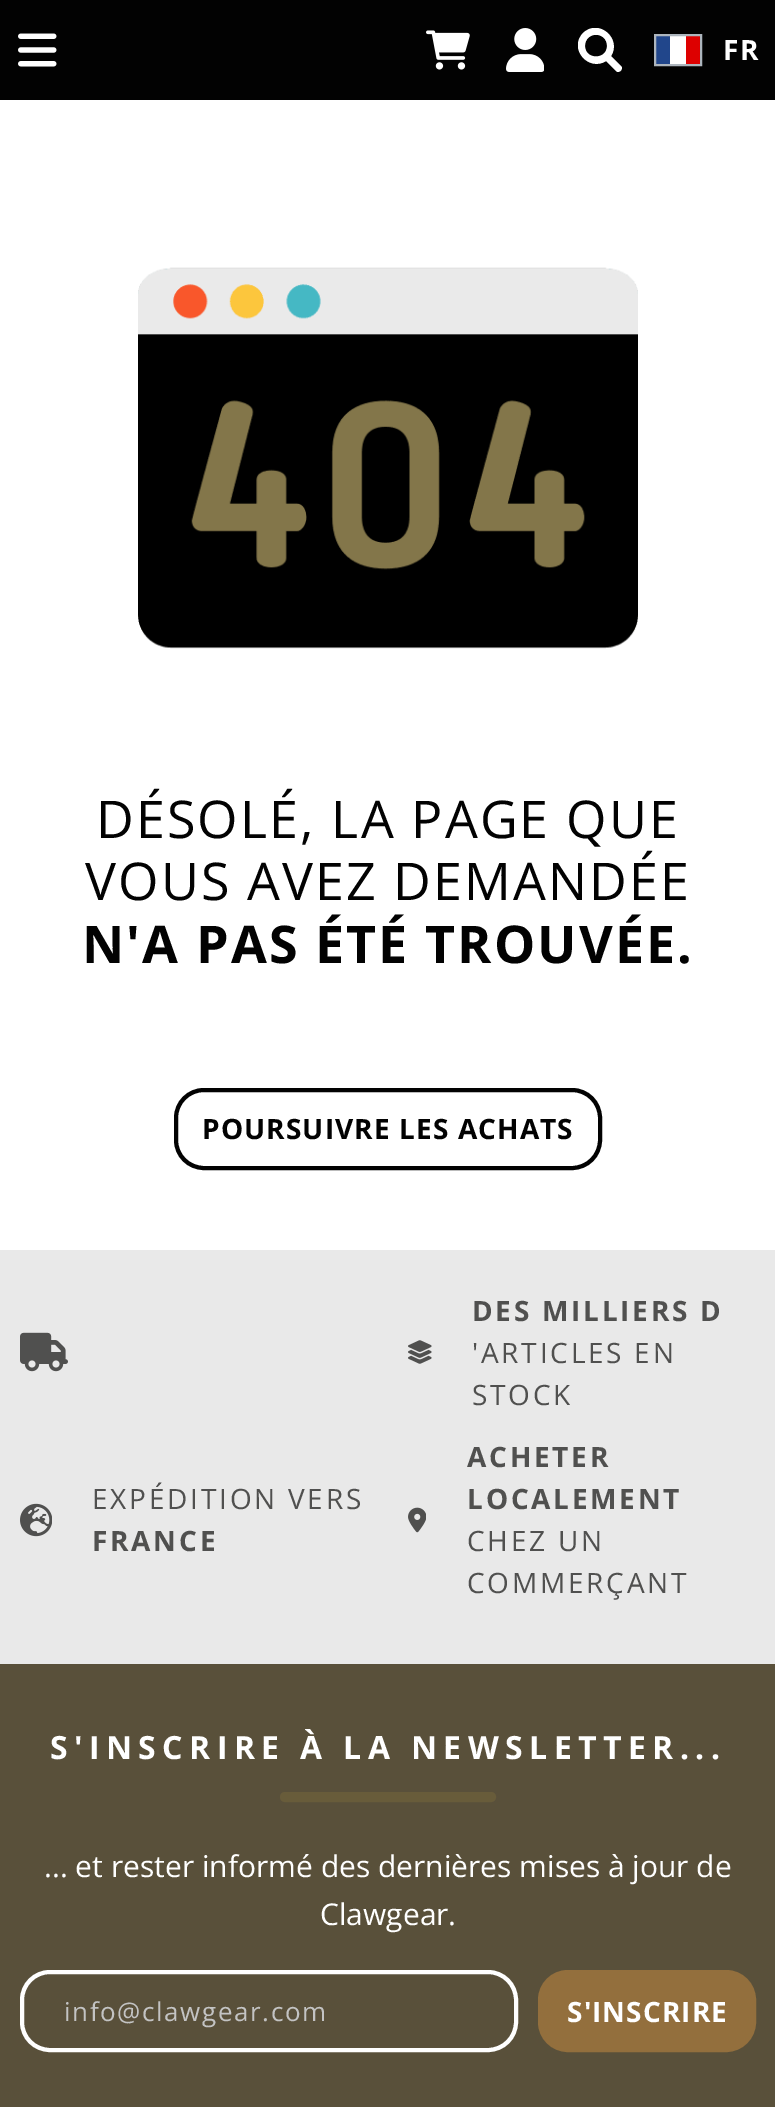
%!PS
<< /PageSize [775 2107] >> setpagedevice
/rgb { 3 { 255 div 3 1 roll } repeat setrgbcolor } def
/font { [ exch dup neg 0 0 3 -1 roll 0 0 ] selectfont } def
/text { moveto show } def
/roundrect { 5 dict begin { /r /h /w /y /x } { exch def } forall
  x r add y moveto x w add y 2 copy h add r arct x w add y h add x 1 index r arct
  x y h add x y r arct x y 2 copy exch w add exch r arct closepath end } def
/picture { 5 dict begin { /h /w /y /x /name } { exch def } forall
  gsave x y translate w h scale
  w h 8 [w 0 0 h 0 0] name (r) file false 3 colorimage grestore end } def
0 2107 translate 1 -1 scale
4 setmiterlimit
233 233 233 rgb
0 0 775 2107 rectfill
2 2 2 rgb
0 0 775 100 rectfill
(img_01.rgb) 18 33 39 34 picture
(img_02.rgb) 426 30 44 40 picture
(img_03.rgb) 506 28 38 44 picture
gsave
578 28 44 44 rectclip
255 255 255 rgb
621 66 moveto -10 -10 rlineto 11 -17 -12 -38 -28 -23 rcurveto -15 16 6 39 23 28 rcurveto 10 10 rlineto 3 3 8 -2 5 -5 rcurveto closepath 585 46 moveto 0 -15 22 -15 22 0 rcurveto 0 14 -22 14 -22 0 rcurveto closepath fill
grestore
33 70 139 rgb
656 36 14 28 rectfill
255 255 255 rgb
670 36 16 28 rectfill
221 0 0 rgb
686 36 14 28 rectfill
173 181 189 rgb
2 setlinewidth
655 35 46 30 rectstroke
255 255 255 rgb
0 100 775 1150 rectfill
(img_04.rgb) 138 267 500 382 picture
2 2 2 rgb
4 setlinewidth
176 1090 424 78 28 roundrect stroke
(img_05.rgb) 20 1332 48 40 picture
(img_06.rgb) 408 1340 24 24 picture
(img_07.rgb) 20 1503 32 34 picture
(img_08.rgb) 408 1507 18 26 picture
89 80 58 rgb
0 1664 775 443 rectfill
104 92 58 rgb
282 1794 212 6 3 roundrect gsave fill grestore
stroke
255 255 255 rgb
22 1972 494 78 28 roundrect stroke
147 111 61 rgb
540 1972 214 78 28 roundrect gsave fill grestore
stroke
/OpenSans-Bold 28 font
255 255 255 rgb
723 60 moveto 2 0 (FR) ashow
/OpenSans-Regular 52 font
2 2 2 rgb
96 838 moveto 2.1 0 (DÉSOLÉ, LA PAGE QUE) ashow
85 900 moveto 2.1 0 (VOUS AVEZ DEMANDÉE) ashow
/OpenSans-Bold 52 font
82 963 moveto 2.1 0 (N'A PAS ÉTÉ TROUVÉE.) ashow
/OpenSans-Bold 28 font
202 1139 moveto 1.1 0 (POURSUIVRE LES ACHATS) ashow
80 80 79 rgb
472 1321 moveto 2.75 0 (DES MILLIERS D) ashow
/OpenSans-Regular 28 font
472 1363 moveto 2.75 0 ('ARTICLES EN) ashow
472 1405 moveto 2.75 0 (STOCK) ashow
92 1509 moveto 2.75 0 (EXPÉDITION VERS) ashow
/OpenSans-Bold 28 font
92 1551 moveto 2.75 0 (FRANCE) ashow
467 1467 moveto 2.75 0 (ACHETER) ashow
467 1509 moveto 2.75 0 (LOCALEMENT) ashow
/OpenSans-Regular 28 font
467 1551 moveto 2.75 0 (CHEZ UN) ashow
467 1593 moveto 2.75 0 (COMMERÇANT) ashow
/OpenSans-Bold 32 font
255 255 255 rgb
50 1759 moveto 6.4 0 (S'INSCRIRE À LA NEWSLETTER...) ashow
/OpenSans-Regular 30 font
(... et rester informé des dernières mises à jour de) 44 1877 text
(Clawgear.) 320 1925 text
/OpenSans-Regular 26 font
195 195 195 rgb
64 2021 moveto 1.6 0 (info@clawgear.com) ashow
/OpenSans-Bold 28 font
255 255 255 rgb
567 2022 moveto 1.1 0 (S'INSCRIRE) ashow
showpage
